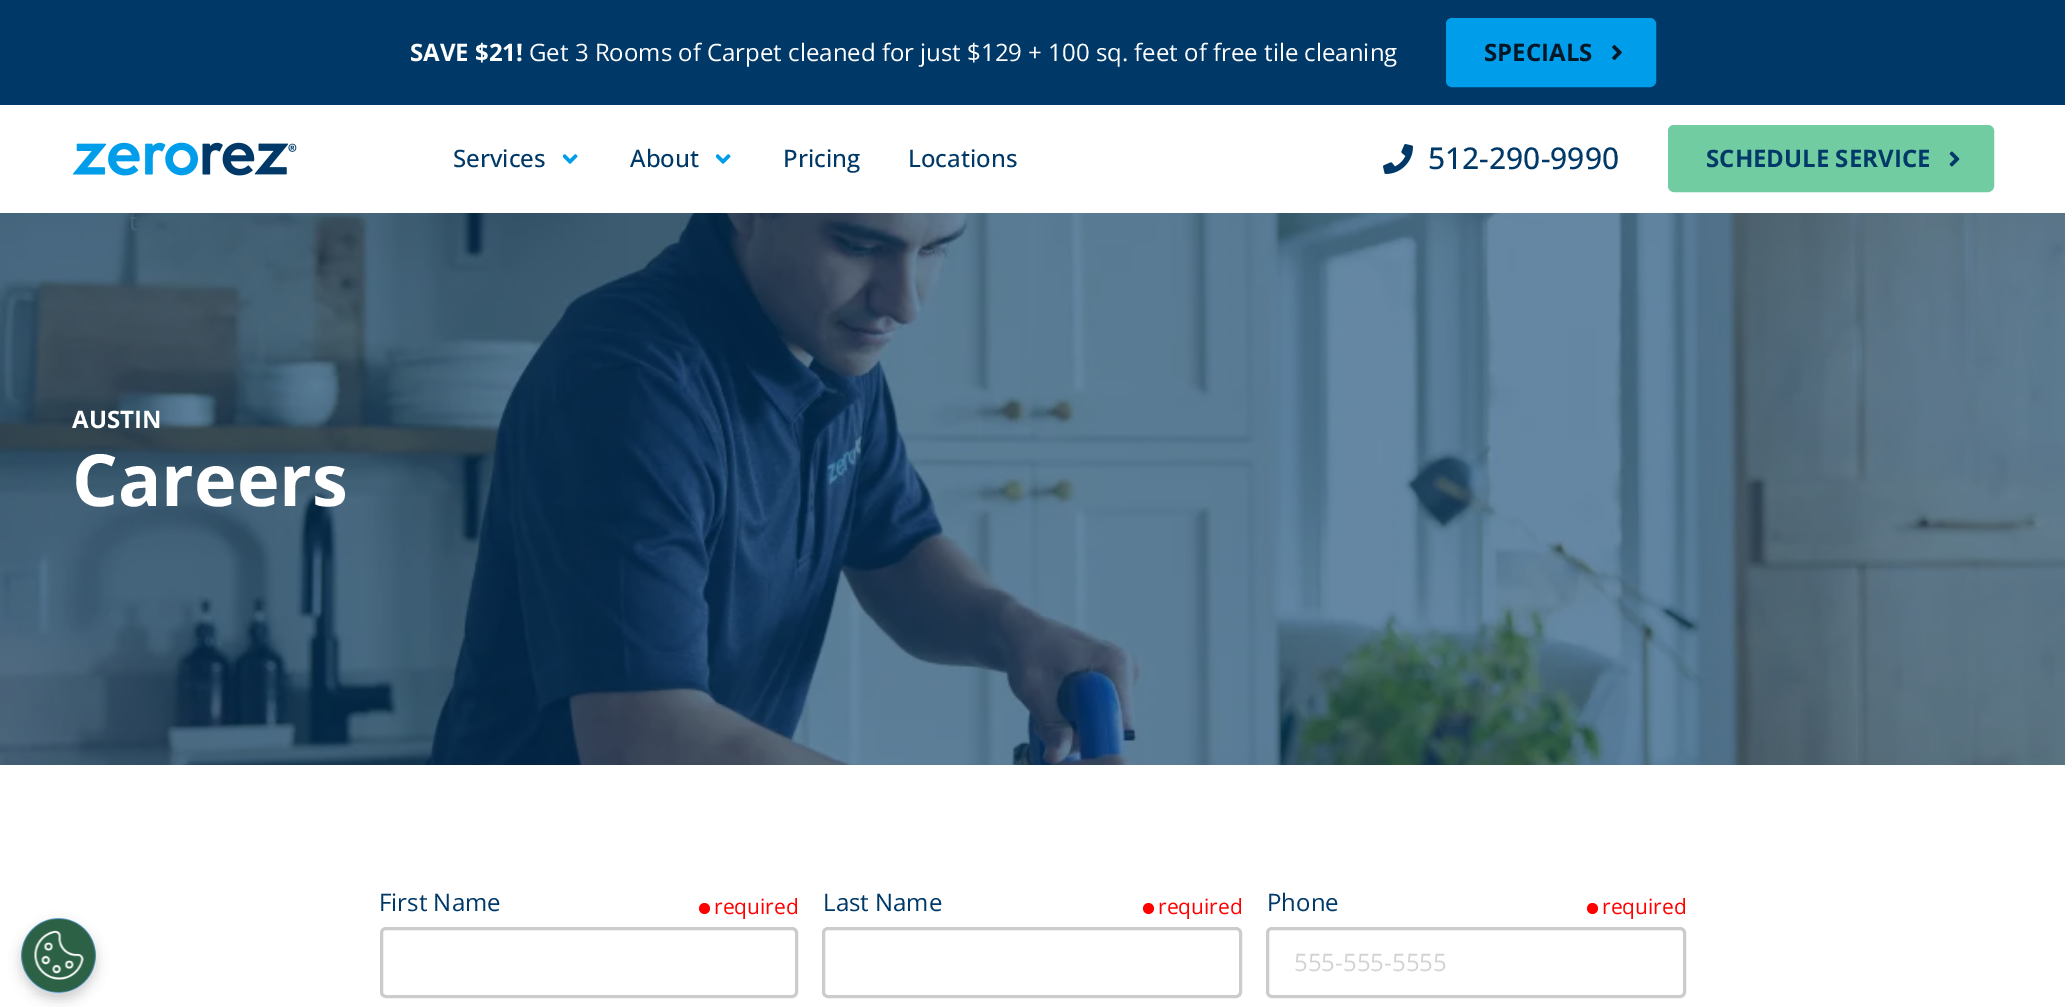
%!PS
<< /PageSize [2065 1007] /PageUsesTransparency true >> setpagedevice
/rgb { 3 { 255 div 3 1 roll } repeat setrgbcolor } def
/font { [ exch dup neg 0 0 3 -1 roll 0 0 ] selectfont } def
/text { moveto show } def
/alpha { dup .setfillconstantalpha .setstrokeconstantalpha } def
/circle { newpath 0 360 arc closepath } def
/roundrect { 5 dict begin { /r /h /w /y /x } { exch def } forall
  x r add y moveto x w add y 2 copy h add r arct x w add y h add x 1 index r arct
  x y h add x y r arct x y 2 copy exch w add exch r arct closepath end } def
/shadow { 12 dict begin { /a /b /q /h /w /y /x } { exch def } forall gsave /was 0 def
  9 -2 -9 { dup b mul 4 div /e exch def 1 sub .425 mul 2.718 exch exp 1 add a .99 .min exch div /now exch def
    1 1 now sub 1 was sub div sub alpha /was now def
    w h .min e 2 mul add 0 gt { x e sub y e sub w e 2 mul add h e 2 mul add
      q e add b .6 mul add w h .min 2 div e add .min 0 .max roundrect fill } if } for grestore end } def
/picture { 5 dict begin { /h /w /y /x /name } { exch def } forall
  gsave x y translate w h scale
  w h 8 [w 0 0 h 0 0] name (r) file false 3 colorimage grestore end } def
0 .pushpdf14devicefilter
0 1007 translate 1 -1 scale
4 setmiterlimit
255 255 255 rgb
0 0 2065 1007 rectfill
0 0 0 rgb
21 924 75 75 37.5 6 0.2 shadow
106 170 228 rgb
58.5 955.5 37.5 circle fill
(img_01.rgb) 21 918 75 75 picture
0 57 104 rgb
0 0 2065 105 rectfill
0 157 234 rgb
1447.5 19.5 207 66 4.5 roundrect gsave fill grestore
3 setlinewidth
stroke
(img_02.rgb) 1612 45 10 15 picture
(img_03.rgb) 73 142 224 34 picture
(img_04.rgb) 563 154 15 10 picture
(img_04.rgb) 716 154 15 10 picture
(img_05.rgb) 1383 144 30 30 picture
113 205 161 rgb
1669.5 126.5 323 64 4.5 roundrect gsave fill grestore
stroke
(img_06.rgb) 1949 151 11 16 picture
(img_07.rgb) 0 213 2065 552 picture
255 0 0 rgb
704.5 908.5 5.5 circle fill
204 204 204 rgb
381.5 928.5 415 68 4.5 roundrect stroke
255 0 0 rgb
1148.5 908.5 5.5 circle fill
204 204 204 rgb
823.5 928.5 417 68 4.5 roundrect stroke
255 0 0 rgb
1592.5 908.5 5.5 circle fill
204 204 204 rgb
1267.5 928.5 417 68 4.5 roundrect stroke
/OpenSans-Bold 24 font
255 255 255 rgb
(SAVE $21!) 410 61 text
/OpenSans-Regular 24 font
(Get 3 Rooms of Carpet cleaned for just $129 + 100 sq. feet of free tile cleaning) 529 61 text
/OpenSans-Bold 24 font
3 24 38 rgb
(SPECIALS) 1484 61 text
/OpenSans-Medium 24 font
0 57 104 rgb
(Services) 453 167 text
(About) 630 167 text
(Pricing) 783 167 text
(Locations) 908 167 text
/OpenSans-Medium 30 font
(512-290-9990) 1428 169 text
/OpenSans-Bold 24 font
(SCHEDULE SERVICE) 1706 167 text
/OpenSans-Regular 24 font
70 100 121 rgb
(t) 129 230 text
/OpenSans-Bold 24 font
255 255 255 rgb
(AUSTIN) 72 428 text
/OpenSans-Bold 72 font
(Careers) 72 506 text
/OpenSans-Regular 24 font
0 57 104 rgb
(First Name) 379 911 text
/OpenSans-Regular 21 font
255 0 0 rgb
(required) 714 914 text
/OpenSans-Regular 24 font
0 57 104 rgb
(Last Name) 823 911 text
/OpenSans-Regular 21 font
255 0 0 rgb
(required) 1158 914 text
/OpenSans-Regular 24 font
0 57 104 rgb
(Phone) 1267 911 text
/OpenSans-Regular 21 font
255 0 0 rgb
(required) 1602 914 text
/OpenSans-Regular 24 font
211 211 211 rgb
(555-555-5555) 1294 971 text
.poppdf14devicefilter showpage
